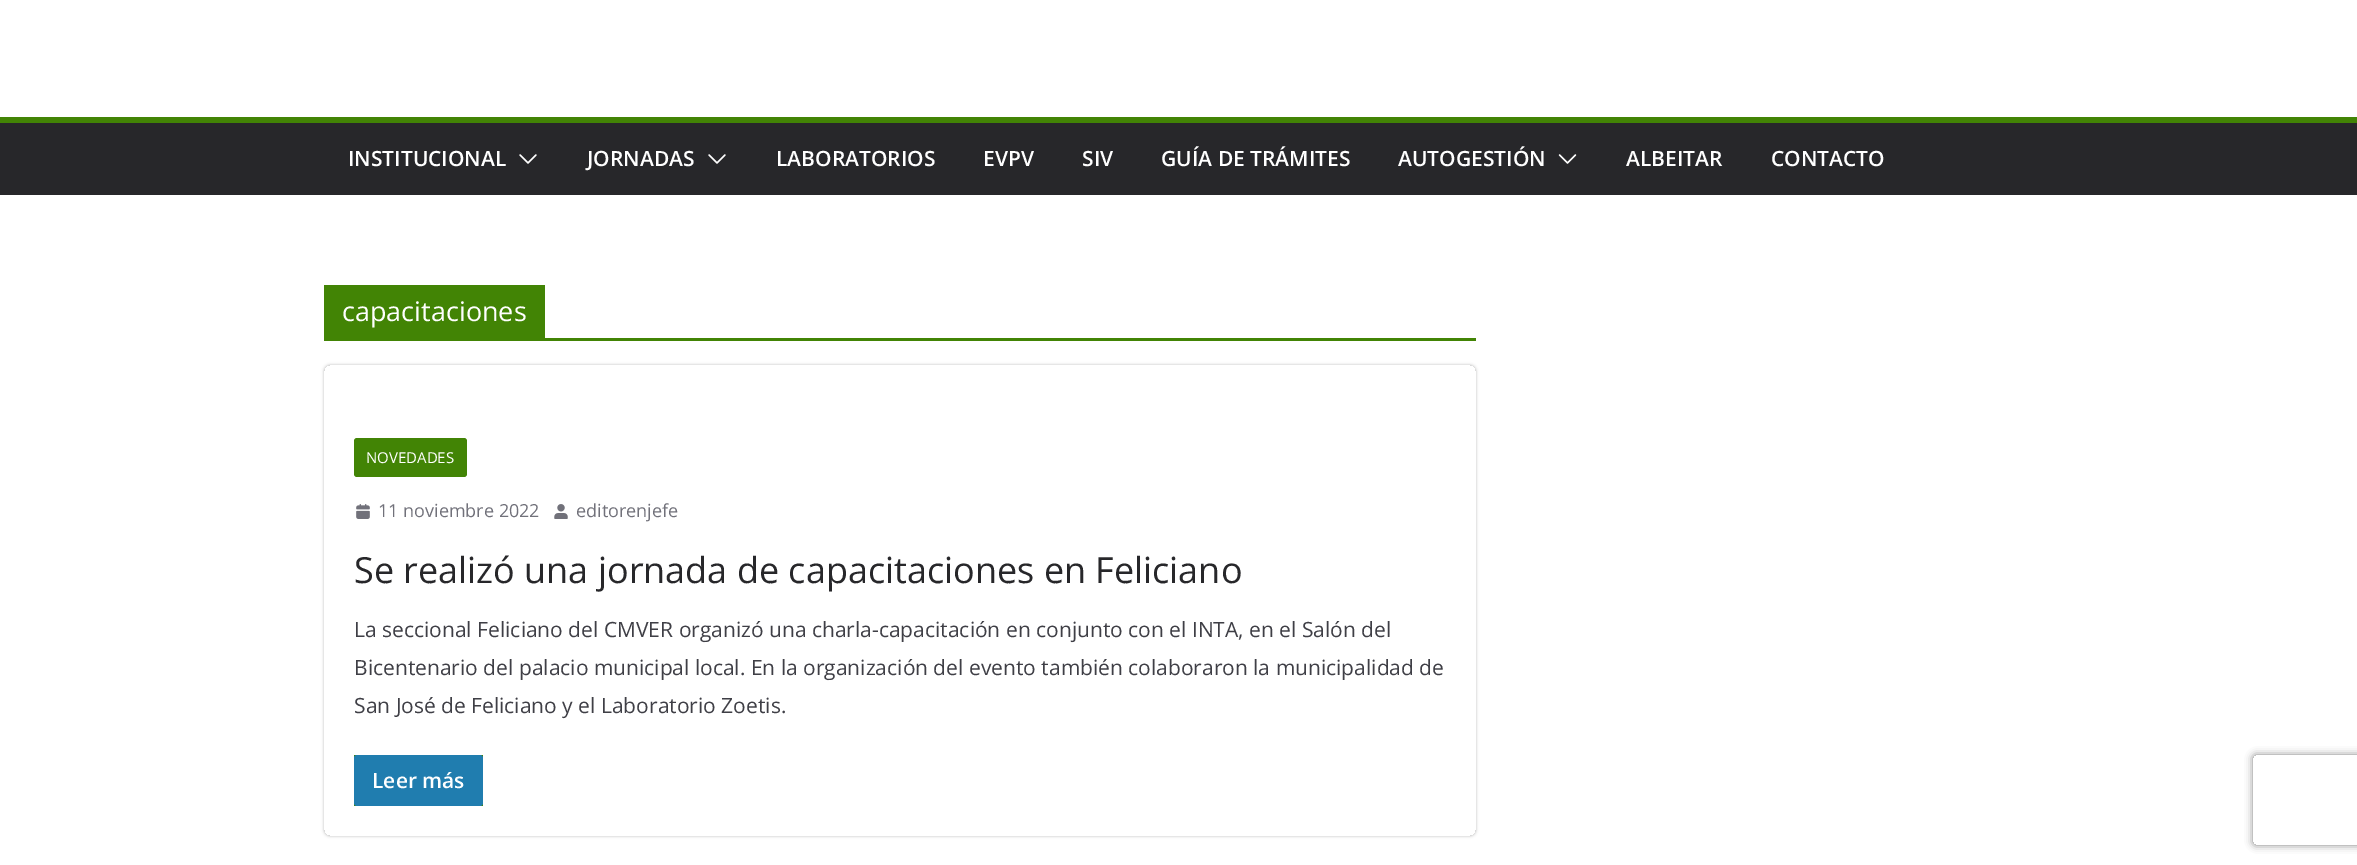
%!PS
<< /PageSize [2357 865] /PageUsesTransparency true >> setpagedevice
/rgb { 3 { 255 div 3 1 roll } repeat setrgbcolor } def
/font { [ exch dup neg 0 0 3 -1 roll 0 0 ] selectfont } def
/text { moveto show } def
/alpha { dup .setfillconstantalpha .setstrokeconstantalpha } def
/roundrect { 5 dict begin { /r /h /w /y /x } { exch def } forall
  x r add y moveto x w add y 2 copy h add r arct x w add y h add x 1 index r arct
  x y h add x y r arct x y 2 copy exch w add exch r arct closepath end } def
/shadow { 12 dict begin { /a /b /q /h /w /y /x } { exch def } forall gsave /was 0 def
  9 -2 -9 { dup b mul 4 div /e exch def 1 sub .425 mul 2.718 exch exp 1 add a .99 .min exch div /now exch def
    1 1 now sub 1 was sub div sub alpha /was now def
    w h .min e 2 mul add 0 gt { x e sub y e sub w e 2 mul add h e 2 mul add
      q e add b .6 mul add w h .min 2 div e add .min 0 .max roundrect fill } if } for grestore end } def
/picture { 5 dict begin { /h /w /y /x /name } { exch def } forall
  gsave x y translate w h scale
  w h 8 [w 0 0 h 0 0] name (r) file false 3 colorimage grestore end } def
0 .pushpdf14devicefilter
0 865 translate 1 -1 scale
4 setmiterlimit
255 255 255 rgb
0 0 2357 865 rectfill
39 39 42 rgb
0 123 2357 72 rectfill
66 132 5 rgb
0 117 2357 6 rectfill
(img_01.rgb) 519 154 18 10 picture
(img_01.rgb) 708 154 18 10 picture
(img_02.rgb) 1558 154 19 10 picture
324 338 1152 3 rectfill
324 285 221 53 rectfill
gsave
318 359 moveto 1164 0 rlineto 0 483 rlineto -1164 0 rlineto closepath 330 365 moveto 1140 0 rlineto 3.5 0 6 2.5 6 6 rcurveto 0 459 rlineto 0 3.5 -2.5 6 -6 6 rcurveto -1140 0 rlineto -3.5 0 -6 -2.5 -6 -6 rcurveto 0 -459 rlineto 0 -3.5 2.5 -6 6 -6 rcurveto closepath eoclip newpath
0 0 0 rgb
324 365 1152 471 6 1.5 0.24 shadow
grestore
354 438 113 39 3 roundrect fill
(img_03.rgb) 356 504 14 15 picture
(img_04.rgb) 554 504 14 15 picture
354 755 129 51 rectfill
32 125 175 rgb
354 755 129 51 3 roundrect fill
gsave
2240 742 moveto 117 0 rlineto 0 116 rlineto -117 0 rlineto closepath 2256 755 moveto 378 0 rlineto 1.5 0 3 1.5 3 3 rcurveto 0 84 rlineto 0 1.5 -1.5 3 -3 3 rcurveto -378 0 rlineto -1.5 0 -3 -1.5 -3 -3 rcurveto 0 -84 rlineto 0 -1.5 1.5 -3 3 -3 rcurveto closepath eoclip newpath
128 128 128 rgb
2253 755 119 90 3 4 1 shadow
grestore
/OpenSans-SemiBold 21 font
255 255 255 rgb
(INSTITUCIONAL) 348 166 text
(JORNADAS) 587 166 text
(LABORATORIOS) 776 166 text
(EVPV) 983 166 text
(SIV) 1082 166 text
(GUÍA DE TRÁMITES) 1161 166 text
(AUTOGESTIÓN) 1398 166 text
(ALBEITAR) 1626 166 text
(CONTACTO) 1771 166 text
/OpenSans-Regular 27 font
(capacitaciones) 342 321 text
/OpenSans-Regular 15 font
(NOVEDADES) 366 463 text
/OpenSans-Regular 18 font
113 113 122 rgb
(11 noviembre 2022) 378 517 text
(editorenjefe) 576 517 text
/OpenSans-Regular 36 font
39 39 42 rgb
(Se realizó una jornada de capacitaciones en Feliciano) 354 583 text
/OpenSans-Regular 21 font
63 63 70 rgb
(La seccional Feliciano del CMVER organizó una charla-capacitación en conjunto con el INTA, en el Salón del) 354 637 text
(Bicentenario del palacio municipal local. En la organización del evento también colaboraron la municipalidad de) 354 675 text
(San José de Feliciano y el Laboratorio Zoetis.) 354 713 text
/OpenSans-SemiBold 21 font
255 255 255 rgb
(Leer más) 372 788 text
.poppdf14devicefilter showpage
